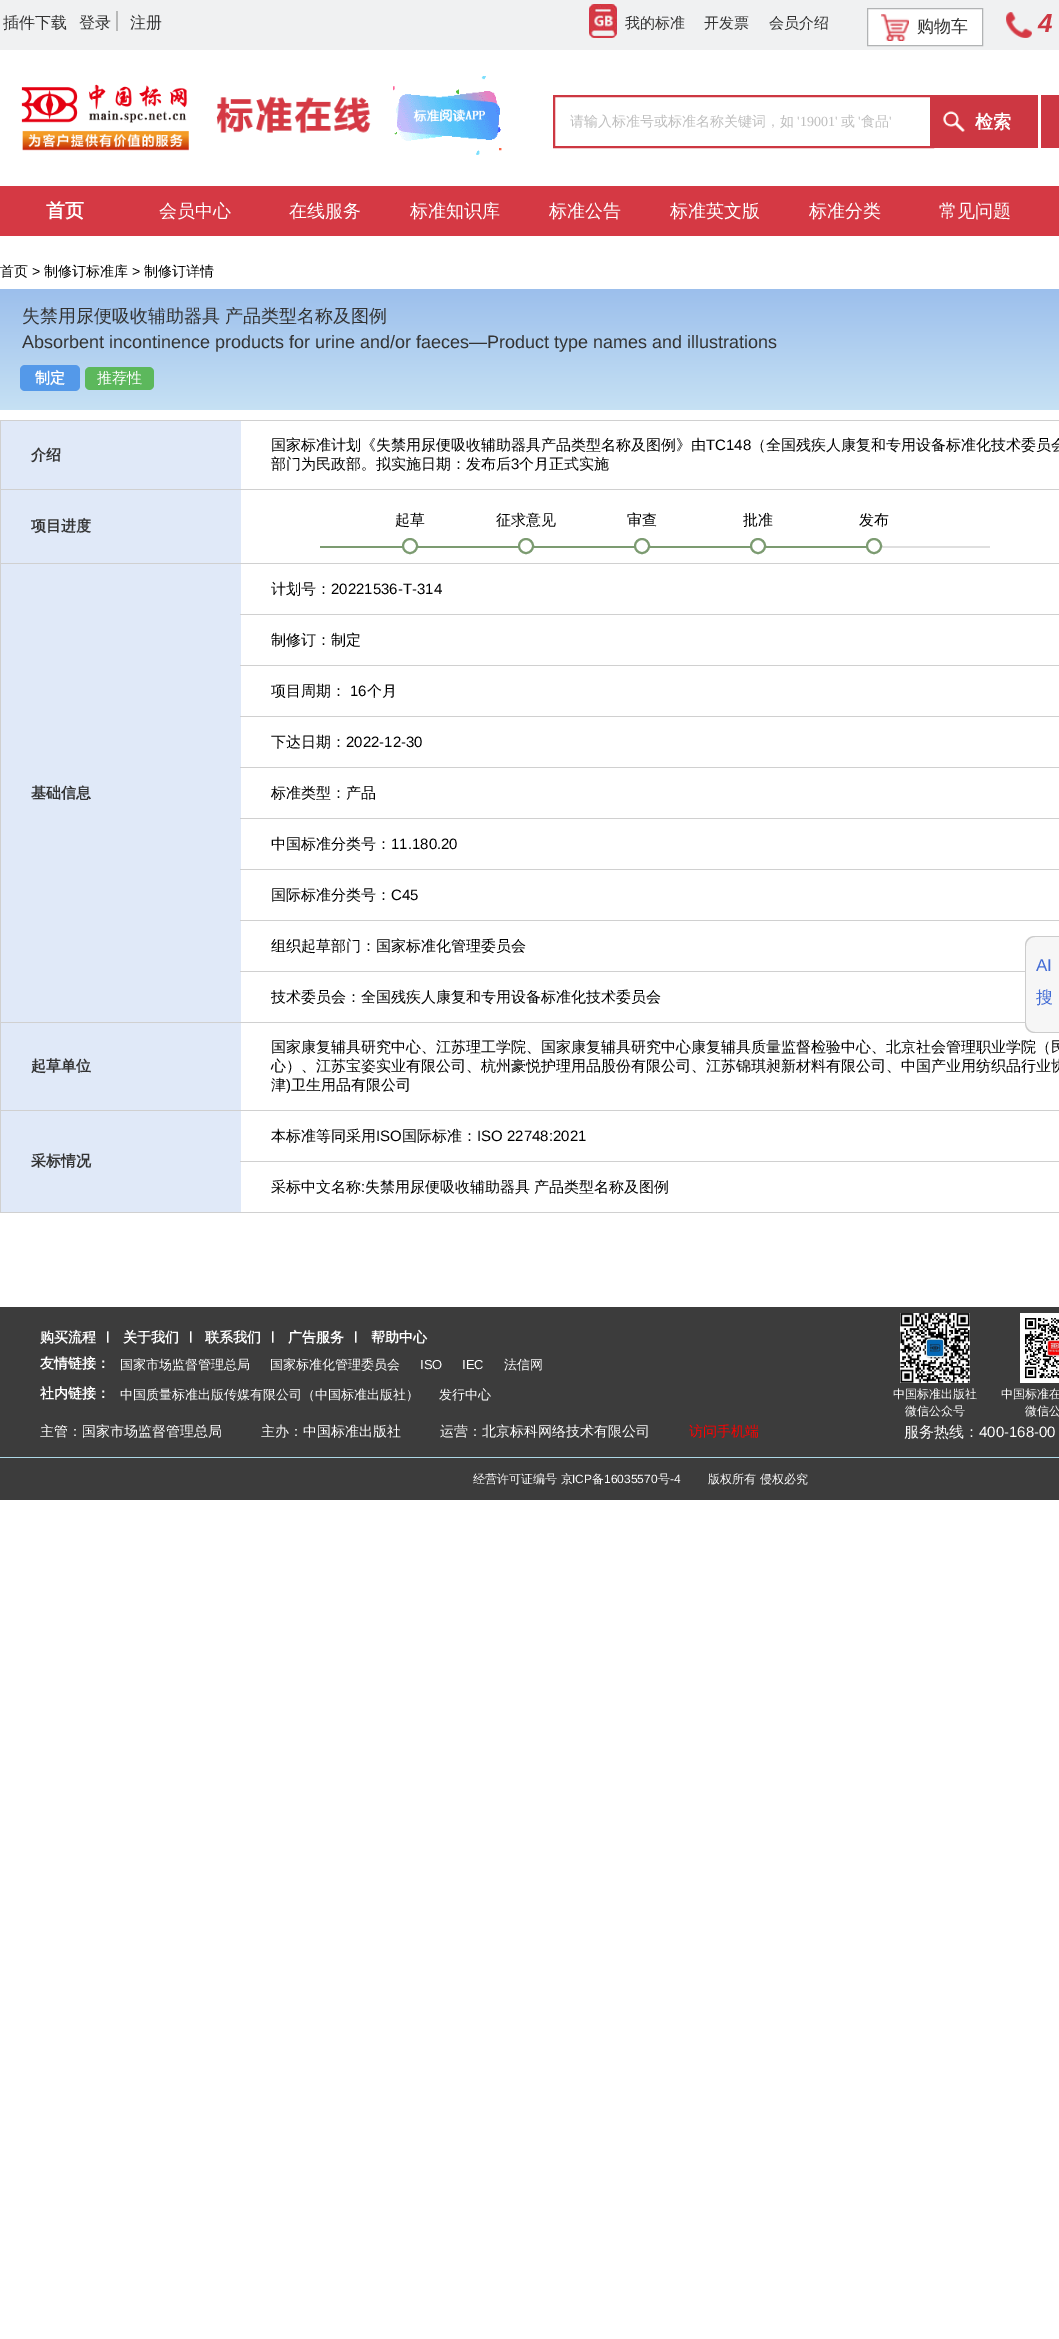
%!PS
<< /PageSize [1059 2339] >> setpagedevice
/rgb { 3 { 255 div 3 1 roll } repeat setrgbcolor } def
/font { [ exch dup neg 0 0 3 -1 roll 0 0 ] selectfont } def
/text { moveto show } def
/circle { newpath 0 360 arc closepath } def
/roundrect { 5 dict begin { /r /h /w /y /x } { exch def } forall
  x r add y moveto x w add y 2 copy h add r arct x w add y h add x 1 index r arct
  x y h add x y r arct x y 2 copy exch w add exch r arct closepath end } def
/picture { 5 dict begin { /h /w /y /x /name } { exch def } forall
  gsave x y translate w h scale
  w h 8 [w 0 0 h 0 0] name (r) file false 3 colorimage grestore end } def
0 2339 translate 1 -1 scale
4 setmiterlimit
255 255 255 rgb
0 0 1059 2339 rectfill
240 241 242 rgb
0 0 1059 50 rectfill
184 185 185 rgb
116 11 2 20 rectfill
(img_01.rgb) 589 4 28 34 picture
255 255 255 rgb
867.5 8.5 moveto 115 0 rlineto 0 37 rlineto -115 0 rlineto closepath gsave fill grestore
177 179 180 rgb
stroke
(img_02.rgb) 881 14 28 27 picture
(img_03.rgb) 1006 12 26 26 picture
(img_04.rgb) 21 84 168 67 picture
(img_05.rgb) 216 96 155 38 picture
(img_06.rgb) 393 76 109 79 picture
205 55 66 rgb
2 setlinewidth
554 96 379 51 rectstroke
930 95 108 53 rectfill
(img_07.rgb) 942 111 23 21 picture
1041 95 18 53 rectfill
213 57 68 rgb
0 186 1059 50 rectfill
gsave 0 289 moveto 1059 0 rlineto 0 121 rlineto -1059 0 rlineto closepath clip newpath
<< /ShadingType 2 /ColorSpace /DeviceRGB /Coords [600 289 600 410] /Extend [true true] /Function << /FunctionType 2 /Domain [0 1] /C0 [0.612 0.749 0.925] /C1 [0.776 0.882 0.957] /N 1 >> >> shfill grestore
84 153 233 rgb
20 365 60 26 5 roundrect fill
92 184 92 rgb
85 367 69 23 5 roundrect fill
224 233 248 rgb
1 421 240 68 rectfill
208 208 208 rgb
0 420 1059 1 rectfill
0 489 1059 1 rectfill
0 563 1059 1 rectfill
0 1022 1025 1 rectfill
0 1110 1059 1 rectfill
0 1212 1059 1 rectfill
0 1110 1 103 rectfill
0 1022 1 89 rectfill
0 563 1 460 rectfill
0 489 1 75 rectfill
0 420 1 70 rectfill
224 233 248 rgb
1 490 240 73 rectfill
124 155 113 rgb
320 546 554 2 rectfill
255 255 255 rgb
410 546 7 circle gsave fill grestore
124 155 113 rgb
stroke
255 255 255 rgb
526 546 7 circle gsave fill grestore
124 155 113 rgb
stroke
255 255 255 rgb
642 546 7 circle gsave fill grestore
124 155 113 rgb
stroke
255 255 255 rgb
758 546 7 circle gsave fill grestore
124 155 113 rgb
stroke
223 223 223 rgb
874 546 116 2 rectfill
255 255 255 rgb
874 546 7 circle gsave fill grestore
124 155 113 rgb
stroke
224 233 248 rgb
1 564 240 458 rectfill
208 208 208 rgb
240 614 819 1 rectfill
240 665 819 1 rectfill
240 716 819 1 rectfill
240 767 819 1 rectfill
240 818 819 1 rectfill
240 869 819 1 rectfill
240 920 819 1 rectfill
240 971 785 1 rectfill
224 233 248 rgb
1 1023 240 87 rectfill
1 1111 240 101 rectfill
208 208 208 rgb
240 1161 819 1 rectfill
246 246 246 rgb
1035 936 moveto 24 0 rlineto 0 97 rlineto -24 0 rlineto -5.5 0 -10 -4.5 -10 -10 rcurveto 0 -77 rlineto 0 -5.5 4.5 -10 10 -10 rcurveto closepath fill
204 204 204 rgb
1035 936 moveto 24 0 rlineto 0 97 rlineto -24 0 rlineto -6 0 -10 -4 -10 -10 rcurveto 0 -77 rlineto 0 -6 4 -10 10 -10 rcurveto closepath 1035 937 moveto 24 0 rlineto 0 95 rlineto -24 0 rlineto -5 0 -9 -4 -9 -9 rcurveto 0 -77 rlineto 0 -5 4 -9 9 -9 rcurveto closepath eofill
60 60 60 rgb
0 1307 1059 150 rectfill
(img_08.rgb) 900 1313 70 70 picture
(img_09.rgb) 1020 1313 39 70 picture
0 1458 1059 42 rectfill
173 216 230 rgb
0 1457 1059 1 rectfill
/WenQuanYiZenHei-Medium 16 font
51 51 51 rgb
(插件下载) 3 28 text
(登录) 79 28 text
(注册) 130 28 text
/WenQuanYiZenHei-Medium 15 font
(我的标准) 625 28 text
(开发票) 704 28 text
(会员介绍) 769 28 text
/WenQuanYiZenHei-Medium 17 font
(购物车) 917 32 text
/LiberationSans-BoldItalic 26 font
205 55 66 rgb
(4) 1038 32 text
/WenQuanYiZenHei-Medium 14 font
190 190 190 rgb
(请输入标准号或标准名称关键词，如) 570 126 text
/LiberationSerif-Regular 14 font
('19001') 797 126 text
/WenQuanYiZenHei-Medium 14 font
(或) 841 126 text
/LiberationSerif-Regular 14 font
(') 858 126 text
/WenQuanYiZenHei-Medium 14 font
(食品) 861 126 text
/LiberationSerif-Regular 14 font
(') 889 126 text
/WenQuanYiZenHei-Bold 18 font
255 255 255 rgb
(检索) 975 128 text
/WenQuanYiZenHei-Bold 19 font
(首页) 46 217 text
/WenQuanYiZenHei-Medium 18 font
(会员中心) 159 217 text
(在线服务) 289 217 text
(标准知识库) 410 217 text
(标准公告) 549 217 text
(标准英文版) 670 217 text
(标准分类) 809 217 text
(常见问题) 939 217 text
/WenQuanYiZenHei-Medium 14 font
0 0 0 rgb
(首页) 0 276 text
/LiberationSans-Regular 14 font
(>) 32 276 text
/WenQuanYiZenHei-Medium 14 font
(制修订标准库) 44 276 text
/LiberationSans-Regular 14 font
(>) 132 276 text
/WenQuanYiZenHei-Medium 14 font
(制修订详情) 144 276 text
/WenQuanYiZenHei-Medium 18 font
51 51 51 rgb
(失禁用尿便吸收辅助器具) 22 322 text
(产品类型名称及图例) 225 322 text
/LiberationSans-Regular 18 font
(Absorbent incontinence products for urine and/or faeces—Product type names and illustrations) 22 348 text
/WenQuanYiZenHei-Bold 15 font
255 255 255 rgb
(制定) 35 383 text
/WenQuanYiZenHei-Medium 15 font
(推荐性) 97 383 text
/WenQuanYiZenHei-Bold 15 font
51 51 51 rgb
(介绍) 31 460 text
/WenQuanYiZenHei-Medium 15 font
0 0 0 rgb
(国家标准计划《失禁用尿便吸收辅助器具产品类型名称及图例》由) 271 450 text
/LiberationSans-Regular 15 font
(TC148) 706 450 text
/WenQuanYiZenHei-Medium 15 font
(（全国残疾人康复和专用设备标准化技术委员会) 751 450 text
(部门为民政部。拟实施日期：发布后) 271 469 text
/LiberationSans-Regular 15 font
(3) 511 469 text
/WenQuanYiZenHei-Medium 15 font
(个月正式实施) 519 469 text
/WenQuanYiZenHei-Bold 15 font
51 51 51 rgb
(项目进度) 31 531 text
/WenQuanYiZenHei-Medium 15 font
0 0 0 rgb
(起草) 395 525 text
(征求意见) 496 525 text
(审查) 627 525 text
(批准) 743 525 text
(发布) 859 525 text
(计划号：) 271 594 text
/LiberationSans-Regular 15 font
(20221536-T-314) 331 594 text
/WenQuanYiZenHei-Bold 15 font
51 51 51 rgb
(基础信息) 31 798 text
/WenQuanYiZenHei-Medium 15 font
0 0 0 rgb
(制修订：制定) 271 645 text
(项目周期：) 271 696 text
/LiberationSans-Regular 15 font
(16) 350 696 text
/WenQuanYiZenHei-Medium 15 font
(个月) 367 696 text
(下达日期：) 271 747 text
/LiberationSans-Regular 15 font
(2022-12-30) 346 747 text
/WenQuanYiZenHei-Medium 15 font
(标准类型：产品) 271 798 text
(中国标准分类号：) 271 849 text
/LiberationSans-Regular 15 font
(11.180.20) 391 849 text
/WenQuanYiZenHei-Medium 15 font
(国际标准分类号：) 271 900 text
/LiberationSans-Regular 15 font
(C45) 391 900 text
/WenQuanYiZenHei-Medium 15 font
(组织起草部门：国家标准化管理委员会) 271 951 text
(技术委员会：全国残疾人康复和专用设备标准化技术委员会) 271 1002 text
/WenQuanYiZenHei-Bold 15 font
51 51 51 rgb
(起草单位) 31 1071 text
/WenQuanYiZenHei-Medium 15 font
0 0 0 rgb
(国家康复辅具研究中心、江苏理工学院、国家康复辅具研究中心康复辅具质量监督检验中心、北京社会管理职业学院（民) 271 1052 text
(心）、江苏宝姿实业有限公司、杭州豪悦护理用品股份有限公司、江苏锦琪昶新材料有限公司、中国产业用纺织品行业协) 271 1071 text
(津) 271 1090 text
/LiberationSans-Regular 15 font
(\)) 286 1090 text
/WenQuanYiZenHei-Medium 15 font
(卫生用品有限公司) 291 1090 text
(本标准等同采用) 271 1141 text
/LiberationSans-Regular 15 font
(ISO) 376 1141 text
/WenQuanYiZenHei-Medium 15 font
(国际标准：) 402 1141 text
/LiberationSans-Regular 15 font
(ISO 22748:2021) 477 1141 text
/WenQuanYiZenHei-Bold 15 font
51 51 51 rgb
(采标情况) 31 1166 text
/WenQuanYiZenHei-Medium 15 font
0 0 0 rgb
(采标中文名称) 271 1192 text
/LiberationSans-Regular 15 font
(:) 361 1192 text
/WenQuanYiZenHei-Medium 15 font
(失禁用尿便吸收辅助器具) 365 1192 text
(产品类型名称及图例) 534 1192 text
/LiberationSans-Regular 17 font
67 108 213 rgb
(AI) 1036 971 text
/WenQuanYiZenHei-Medium 17 font
(搜) 1036 1003 text
/WenQuanYiZenHei-Bold 14 font
255 255 255 rgb
(购买流程) 40 1342 text
/LiberationSans-Bold 12 font
(|) 106 1340 text
/WenQuanYiZenHei-Bold 14 font
(关于我们) 123 1342 text
/LiberationSans-Bold 12 font
(|) 189 1340 text
/WenQuanYiZenHei-Bold 14 font
(联系我们) 205 1342 text
/LiberationSans-Bold 12 font
(|) 271 1340 text
/WenQuanYiZenHei-Bold 14 font
(广告服务) 288 1342 text
/LiberationSans-Bold 12 font
(|) 354 1340 text
/WenQuanYiZenHei-Bold 14 font
(帮助中心) 371 1342 text
(友情链接：) 40 1368 text
/WenQuanYiZenHei-Medium 13 font
(国家市场监督管理总局) 120 1369 text
(国家标准化管理委员会) 270 1369 text
/LiberationSans-Regular 13 font
(ISO) 420 1369 text
(IEC) 462 1369 text
/WenQuanYiZenHei-Medium 13 font
(法信网) 504 1369 text
/WenQuanYiZenHei-Bold 14 font
(社内链接：) 40 1398 text
/WenQuanYiZenHei-Medium 13 font
(中国质量标准出版传媒有限公司（中国标准出版社）) 120 1399 text
(发行中心) 439 1399 text
/WenQuanYiZenHei-Medium 12 font
(中国标准出版社) 893 1398 text
(微信公众号) 905 1415 text
(中国标准在) 1001 1398 text
(微信公) 1025 1415 text
/WenQuanYiZenHei-Medium 14 font
(主管：国家市场监督管理总局) 40 1436 text
(主办：中国标准出版社) 261 1436 text
(运营：北京标科网络技术有限公司) 440 1436 text
255 0 0 rgb
(访问手机端) 689 1436 text
/WenQuanYiZenHei-Medium 15 font
255 255 255 rgb
(服务热线：) 904 1437 text
/LiberationSans-Regular 15 font
(400-168-00) 979 1437 text
/WenQuanYiZenHei-Medium 12 font
(经营许可证编号 京) 473 1483 text
/LiberationSans-Regular 12 font
(ICP) 572 1483 text
/WenQuanYiZenHei-Medium 12 font
(备) 592 1483 text
/LiberationSans-Regular 12 font
(16035570) 604 1483 text
/WenQuanYiZenHei-Medium 12 font
(号) 658 1483 text
/LiberationSans-Regular 12 font
(-4) 670 1483 text
/WenQuanYiZenHei-Medium 12 font
(版权所有 侵权必究) 708 1483 text
showpage
